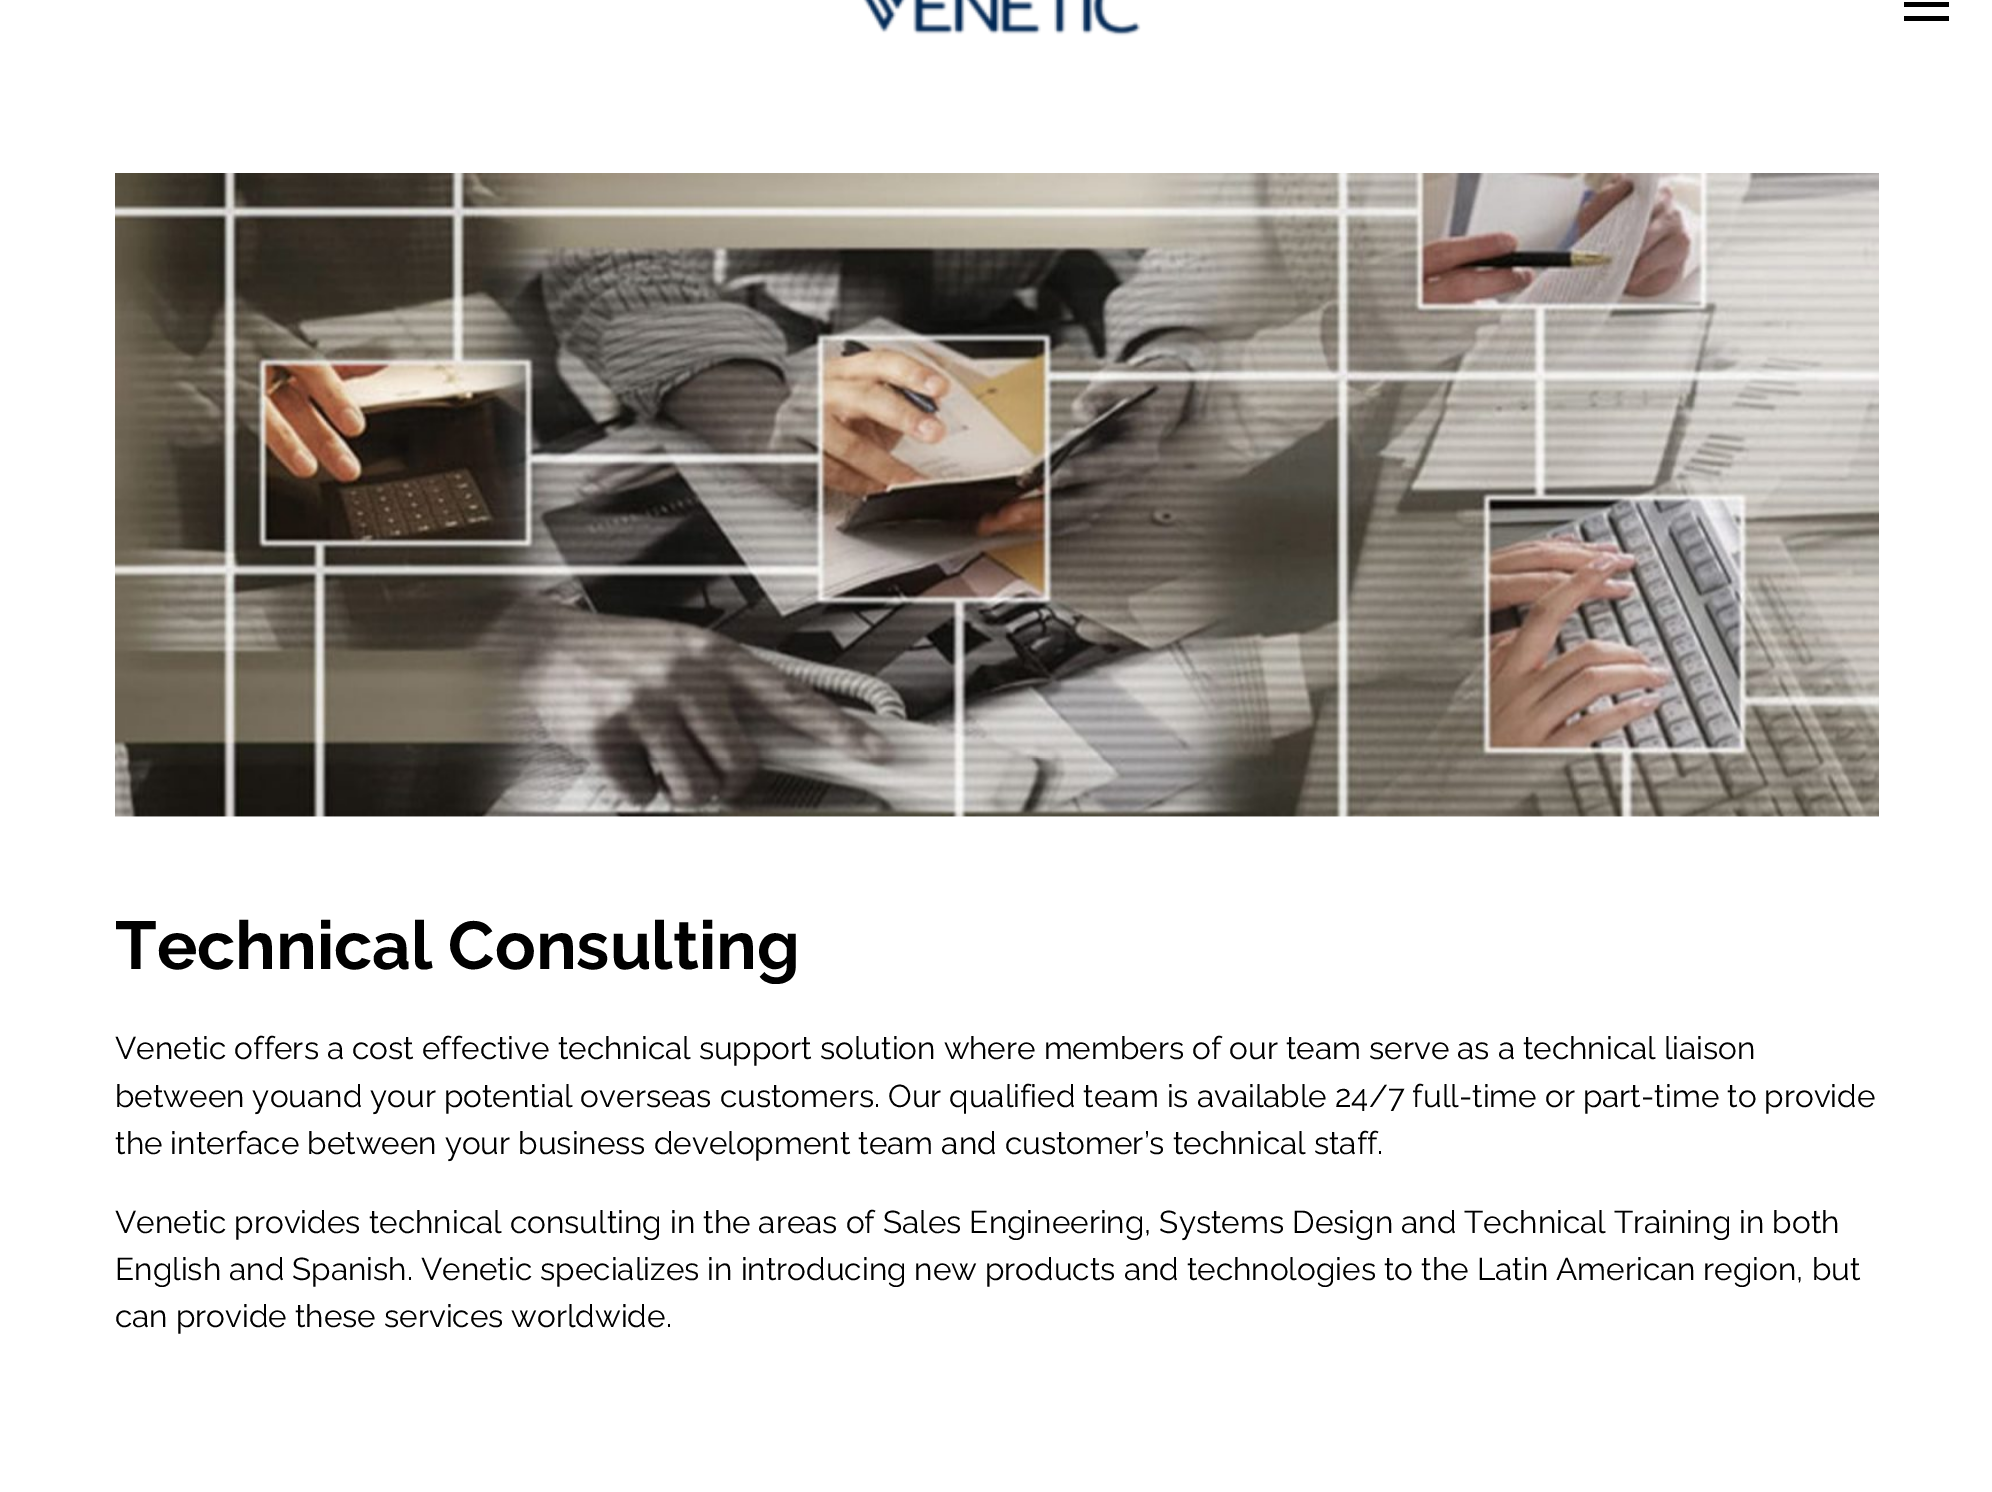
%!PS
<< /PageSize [1992 1492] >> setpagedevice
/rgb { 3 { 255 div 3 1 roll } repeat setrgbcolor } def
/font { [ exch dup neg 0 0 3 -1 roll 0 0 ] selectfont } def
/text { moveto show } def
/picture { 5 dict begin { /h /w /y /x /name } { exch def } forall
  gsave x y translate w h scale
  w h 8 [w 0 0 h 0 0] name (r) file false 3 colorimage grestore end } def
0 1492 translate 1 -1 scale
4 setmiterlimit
255 255 255 rgb
0 0 1992 1492 rectfill
(img_01.rgb) 863 0 278 36 picture
0 0 0 rgb
1904 2 45 5 rectfill
1904 16 45 5 rectfill
(img_02.rgb) 115 173 1764 644 picture
/Raleway-Bold 67.5 font
(Technical Consulting) 115 969 text
/Raleway-Regular 31.5 font
(Venetic offers a cost effective technical support solution where members of our team serve as a technical liaison) 115 1059 text
(between youand your potential overseas customers. Our qualified team is available 24/7 full-time or part-time to provide) 115 1107 text
(the interface between your business development team and customer’s technical staff.) 115 1154 text
(Venetic provides technical consulting in the areas of Sales Engineering, Systems Design and Technical Training in both) 115 1233 text
(English and Spanish. Venetic specializes in introducing new products and technologies to the Latin American region, but) 115 1280 text
(can provide these services worldwide.) 115 1327 text
showpage
